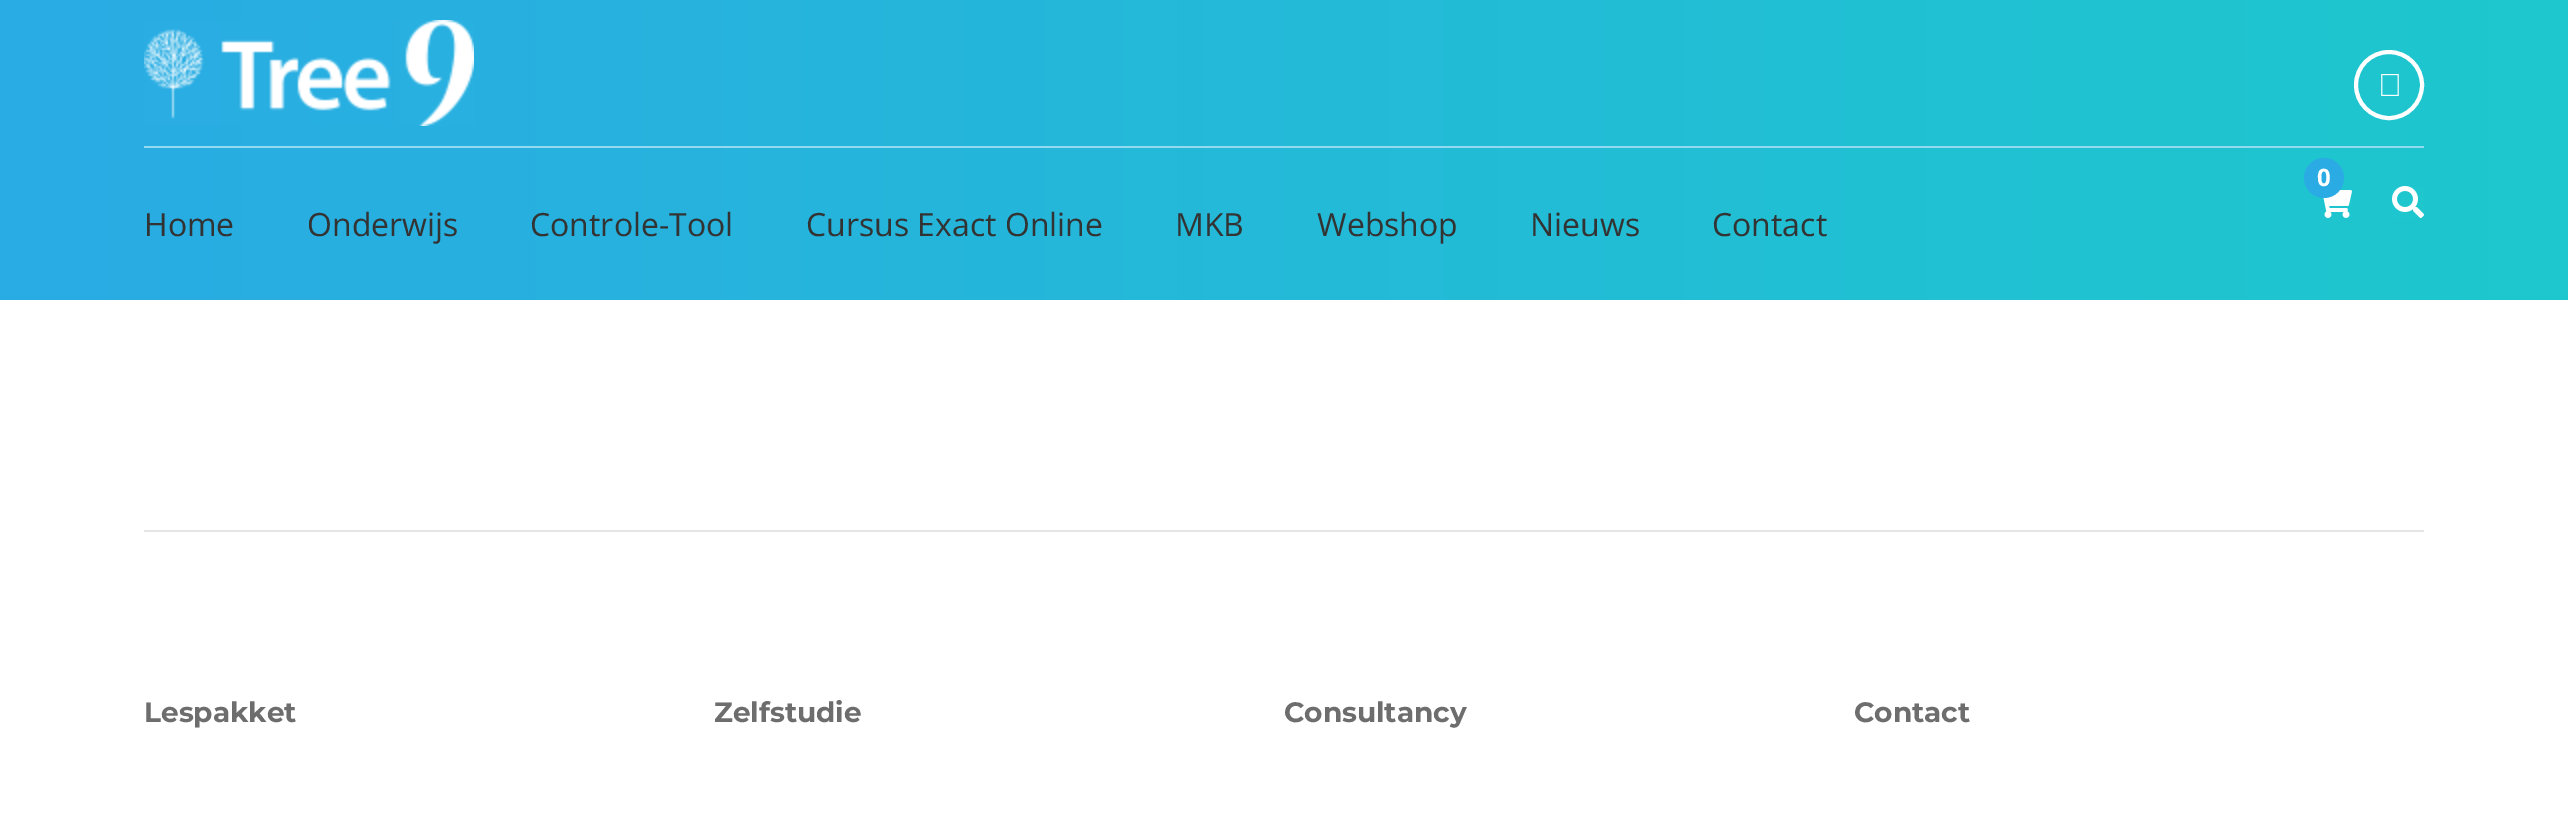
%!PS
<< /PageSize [2568 814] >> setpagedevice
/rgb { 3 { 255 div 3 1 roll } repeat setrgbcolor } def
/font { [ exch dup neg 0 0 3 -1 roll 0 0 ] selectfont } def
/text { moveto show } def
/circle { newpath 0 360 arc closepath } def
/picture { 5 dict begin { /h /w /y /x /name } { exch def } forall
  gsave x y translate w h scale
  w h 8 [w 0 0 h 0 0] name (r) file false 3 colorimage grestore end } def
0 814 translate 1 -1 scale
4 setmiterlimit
255 255 255 rgb
0 0 2568 814 rectfill
gsave 0 0 moveto 2568 0 rlineto 0 300 rlineto -2568 0 rlineto closepath clip newpath
<< /ShadingType 2 /ColorSpace /DeviceRGB /Coords [0 150 2568 150] /Extend [true true] /Function << /FunctionType 2 /Domain [0 1] /C0 [0.165 0.671 0.894] /C1 [0.114 0.784 0.804] /N 1 >> >> shfill grestore
(img_01.rgb) 144 20 330 106 picture
4 setlinewidth
2389 85 33 circle stroke
(img_02.rgb) 2381 74 18 22 picture
147 217 239 rgb
144 146 2280 2 rectfill
(img_03.rgb) 2323 190 29 28 picture
42 171 228 rgb
2324 178 20 circle fill
(img_04.rgb) 2392 186 32 32 picture
229 229 229 rgb
144 530 2280 2 rectfill
/OpenSans-Bold 24 font
255 255 255 rgb
(0) 2317 186 text
/OpenSans-Regular 32 font
51 51 51 rgb
(Home) 144 236 text
(Onderwijs) 307 236 text
(Controle-Tool) 530 236 text
(Cursus Exact Online) 806 236 text
(MKB) 1175 236 text
(Webshop) 1317 236 text
(Nieuws) 1530 236 text
(Contact) 1712 236 text
/Montserrat-Bold 28 font
109 109 109 rgb
(Lespakket) 144 722 text
(Zelfstudie) 714 722 text
(Consultancy) 1284 722 text
(Contact) 1854 722 text
showpage
